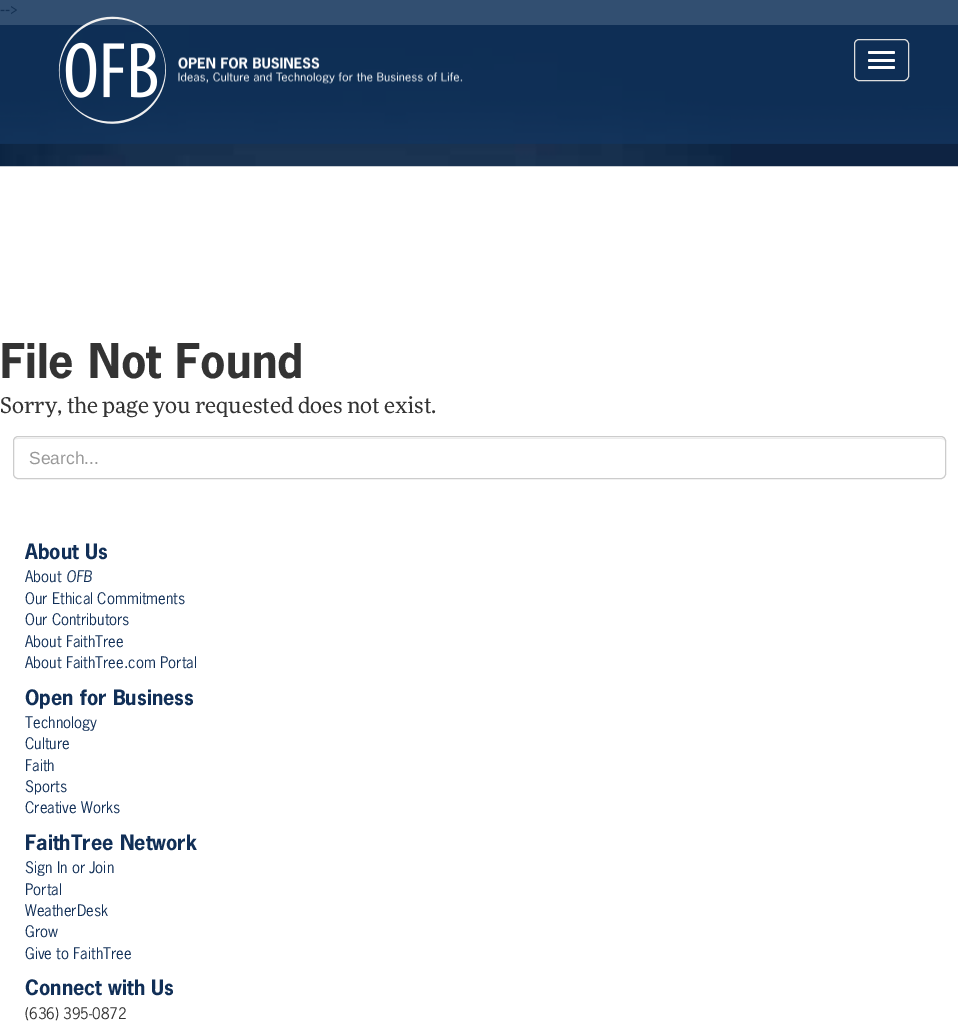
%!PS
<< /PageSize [958 1035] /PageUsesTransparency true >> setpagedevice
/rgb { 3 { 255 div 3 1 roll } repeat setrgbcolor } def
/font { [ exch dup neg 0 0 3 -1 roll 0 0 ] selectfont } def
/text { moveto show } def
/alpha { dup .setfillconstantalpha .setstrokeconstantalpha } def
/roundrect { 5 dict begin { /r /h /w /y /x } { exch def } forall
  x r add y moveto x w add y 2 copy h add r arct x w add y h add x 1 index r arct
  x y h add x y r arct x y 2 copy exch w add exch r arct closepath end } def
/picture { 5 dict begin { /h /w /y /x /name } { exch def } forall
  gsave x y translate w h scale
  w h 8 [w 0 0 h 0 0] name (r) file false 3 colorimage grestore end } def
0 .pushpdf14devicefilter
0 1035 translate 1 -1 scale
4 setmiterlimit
255 255 255 rgb
0 0 958 1035 rectfill
(img_04.rgb) 0 25 958 142 picture
(img_01.rgb) 0 0 958 144 picture
0.7 alpha
17 47 87 rgb
0 0 958 144 rectfill
1 alpha
(img_02.rgb) 58 16 108 108 picture
(img_03.rgb) 178 57 285 27 picture
221 221 221 rgb
854.5 39.5 54 41 4.5 roundrect stroke
255 255 255 rgb
868 51 27 3 1.5 roundrect fill
868 59 27 3 1.5 roundrect fill
868 66 27 3 1.5 roundrect fill
236 236 236 rgb
18 439 moveto 923 0 rlineto 2 0 4 1 4 3 rcurveto 0 -2 -2 -4 -4 -4 rcurveto -923 0 rlineto -2 0 -3 1 -4 2 rcurveto 1 -1 2 -1 4 -1 rcurveto closepath fill
204 204 204 rgb
13.5 436.5 932 42 4.5 roundrect stroke
/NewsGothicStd-Bold 45 font
51 51 51 rgb
(File Not Found) 0 378 text
/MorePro-Regular 21.7 font
(Sorry, the page you requested does not exist.) 0 413 text
/LiberationSans-Regular 17.5 font
153 153 153 rgb
(Search...) 29 464 text
/NewsGothicStd-Bold 20 font
17 47 87 rgb
(About Us) 25 559 text
/NewsGothicStd-Regular 15 font
(About) 25 582 text
/NewsGothicStd-Italic 15 font
(OFB) 66 582 text
/NewsGothicStd-Regular 15 font
(Our Ethical Commitments) 25 604 text
(Our Contributors) 25 625 text
(About FaithTree) 25 647 text
(About FaithTree.com Portal) 25 668 text
/NewsGothicStd-Bold 20 font
(Open for Business) 25 705 text
/NewsGothicStd-Regular 15 font
(Technology) 25 728 text
(Culture) 25 749 text
(Faith) 25 771 text
(Sports) 25 792 text
(Creative Works) 25 813 text
/NewsGothicStd-Bold 20 font
(FaithTree Network) 25 850 text
/NewsGothicStd-Regular 15 font
(Sign In or Join) 25 873 text
(Portal) 25 895 text
(WeatherDesk) 25 916 text
(Grow) 25 937 text
(Give to FaithTree) 25 959 text
/NewsGothicStd-Bold 20 font
(Connect with Us) 25 995 text
/NewsGothicStd-Regular 15 font
51 51 51 rgb
(\(636\) 395-0872) 25 1019 text
.poppdf14devicefilter showpage
